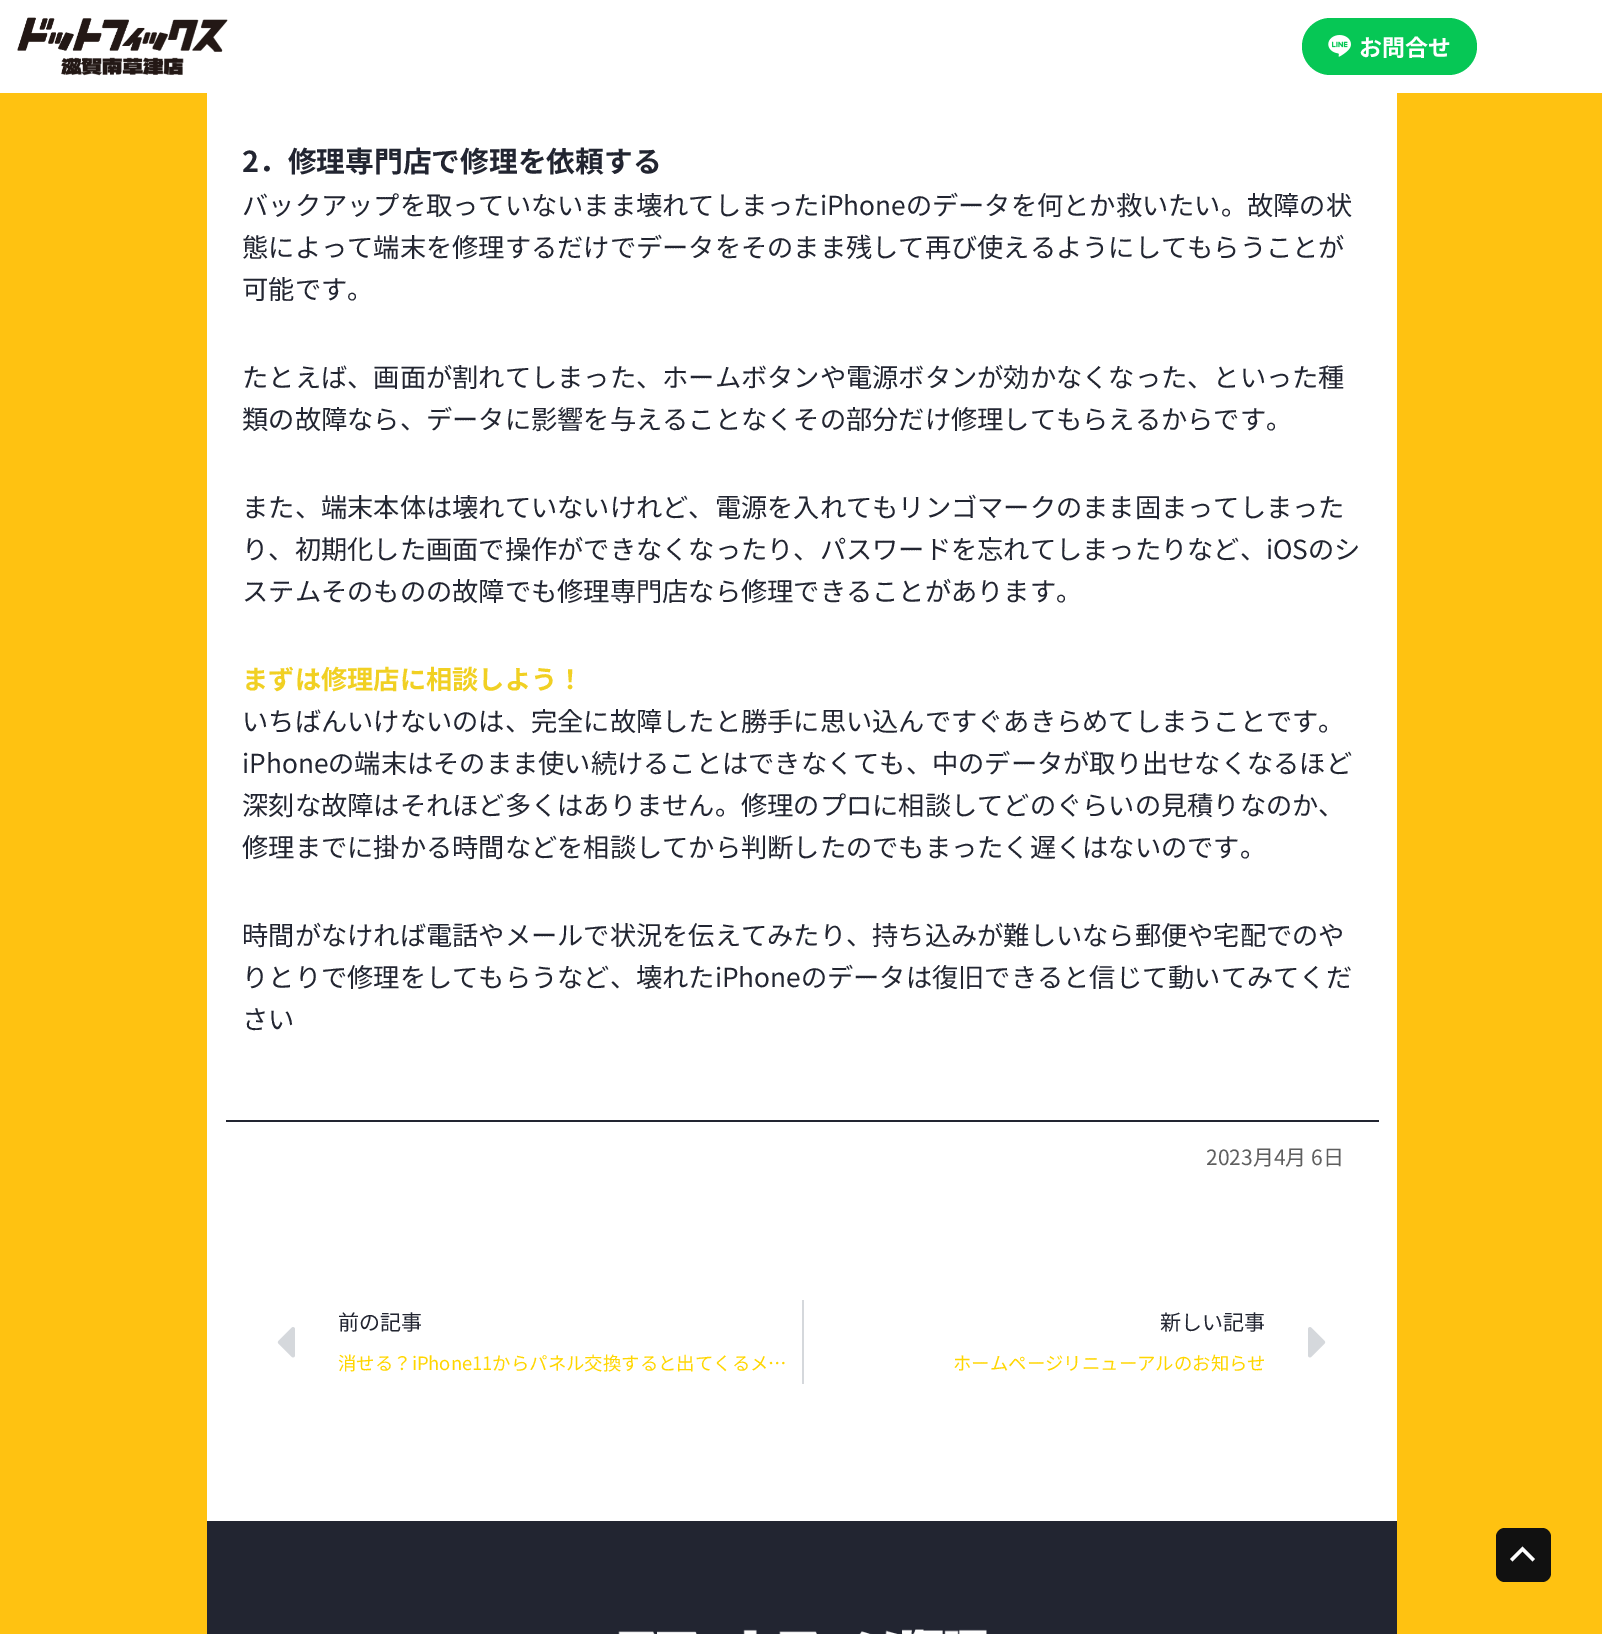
%!PS
<< /PageSize [1602 1634] >> setpagedevice
/rgb { 3 { 255 div 3 1 roll } repeat setrgbcolor } def
/font { [ exch dup neg 0 0 3 -1 roll 0 0 ] selectfont } def
/text { moveto show } def
/roundrect { 5 dict begin { /r /h /w /y /x } { exch def } forall
  x r add y moveto x w add y 2 copy h add r arct x w add y h add x 1 index r arct
  x y h add x y r arct x y 2 copy exch w add exch r arct closepath end } def
/picture { 5 dict begin { /h /w /y /x /name } { exch def } forall
  gsave x y translate w h scale
  w h 8 [w 0 0 h 0 0] name (r) file false 3 colorimage grestore end } def
0 1634 translate 1 -1 scale
4 setmiterlimit
255 194 17 rgb
0 0 1602 1634 rectfill
255 255 255 rgb
207 93 1190 1428 rectfill
0 0 1602 93 rectfill
(img_01.rgb) 17 17 211 59 picture
6 199 85 rgb
1302 18 175 57 28.5 roundrect fill
(img_02.rgb) 1328 35 23 22 picture
34 37 49 rgb
226 1120 1153 2 rectfill
(img_03.rgb) 277 1327 18 31 picture
213 216 220 rgb
802 1300 2 84 rectfill
(img_04.rgb) 1308 1327 18 31 picture
34 37 49 rgb
207 1521 1190 113 rectfill
(img_05.rgb) 618 1629 369 5 picture
17 17 17 rgb
1496 1528 55 54 9 roundrect fill
255 255 255 rgb
1535 1559 moveto -12.5 -12.5 rlineto -12.5 12.5 rlineto 2.5 2.5 rlineto 10 -10 rlineto 10 10 rlineto closepath fill
/NotoSansJP-Bold 23 font
(お問合せ) 1359 56 text
/NotoSansJP-Bold 28.75 font
34 37 49 rgb
(2．修理専門店で修理を依頼する) 242 172 text
/NotoSansJP-Regular 26.25 font
(バックアップを取っていないまま壊れてしまったiPhoneのデータを何とか救いたい。故障の状) 242 215 text
(態によって端末を修理するだけでデータをそのまま残して再び使えるようにしてもらうことが) 242 257 text
(可能です。) 242 299 text
(たとえば、画面が割れてしまった、ホームボタンや電源ボタンが効かなくなった、といった種) 242 387 text
(類の故障なら、データに影響を与えることなくその部分だけ修理してもらえるからです。) 242 429 text
(また、端末本体は壊れていないけれど、電源を入れてもリンゴマークのまま固まってしまった) 242 517 text
(り、初期化した画面で操作ができなくなったり、パスワードを忘れてしまったりなど、iOSのシ) 242 559 text
(ステムそのものの故障でも修理専門店なら修理できることがあります。) 242 601 text
/NotoSansJP-Bold 26.25 font
241 208 35 rgb
(まずは修理店に相談しよう！) 242 689 text
/NotoSansJP-Regular 26.25 font
34 37 49 rgb
(いちばんいけないのは、完全に故障したと勝手に思い込んですぐあきらめてしまうことです。) 242 731 text
(iPhoneの端末はそのまま使い続けることはできなくても、中のデータが取り出せなくなるほど) 242 773 text
(深刻な故障はそれほど多くはありません。修理のプロに相談してどのぐらいの見積りなのか、) 242 815 text
(修理までに掛かる時間などを相談してから判断したのでもまったく遅くはないのです。) 242 857 text
(時間がなければ電話やメールで状況を伝えてみたり、持ち込みが難しいなら郵便や宅配でのや) 242 945 text
(りとりで修理をしてもらうなど、壊れたiPhoneのデータは復旧できると信じて動いてみてくだ) 242 987 text
(さい) 242 1029 text
/NotoSansJP-Regular 21 font
95 95 95 rgb
(2023月4月 6日) 1206 1165 text
34 37 49 rgb
(前の記事) 338 1330 text
/NotoSansJP-Regular 18.4 font
255 214 0 rgb
(消せる？iPhone11からパネル交換すると出てくるメ…) 338 1370 text
/NotoSansJP-Regular 21 font
34 37 49 rgb
(新しい記事) 1160 1330 text
/NotoSansJP-Regular 18.4 font
255 214 0 rgb
(ホームページリニューアルのお知らせ) 953 1370 text
showpage
